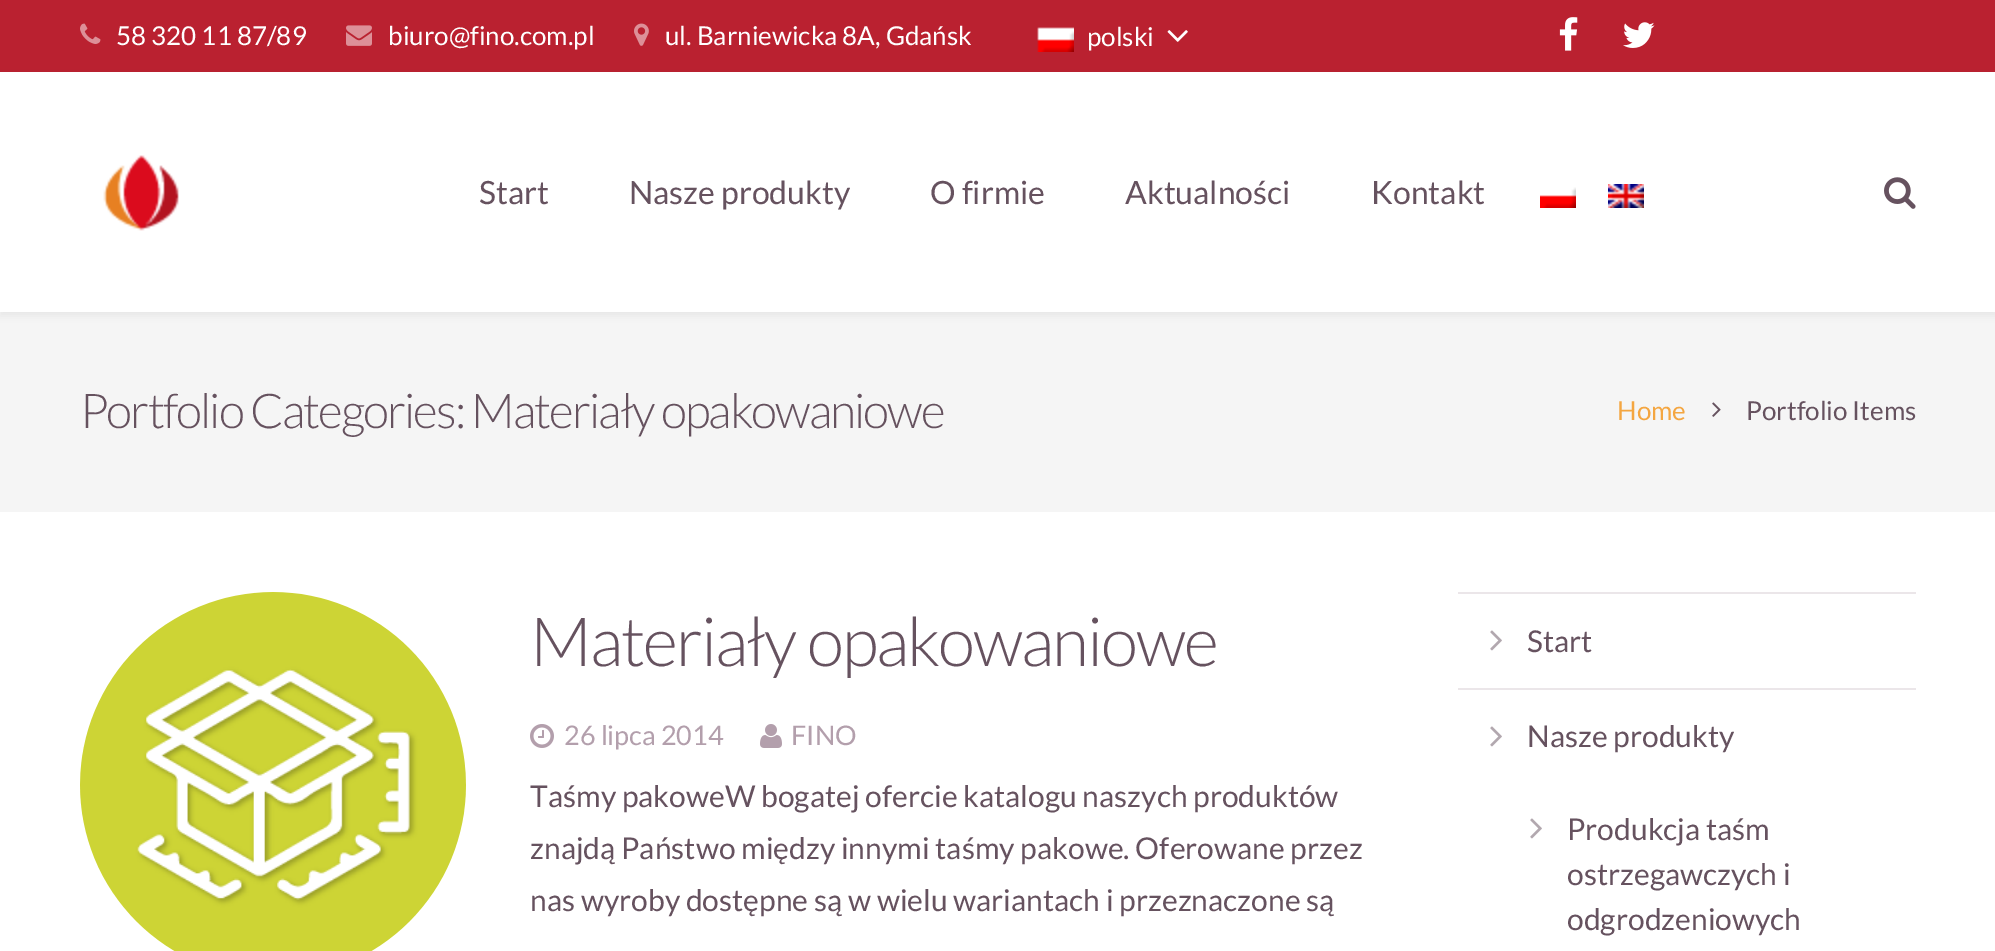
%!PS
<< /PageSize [1995 951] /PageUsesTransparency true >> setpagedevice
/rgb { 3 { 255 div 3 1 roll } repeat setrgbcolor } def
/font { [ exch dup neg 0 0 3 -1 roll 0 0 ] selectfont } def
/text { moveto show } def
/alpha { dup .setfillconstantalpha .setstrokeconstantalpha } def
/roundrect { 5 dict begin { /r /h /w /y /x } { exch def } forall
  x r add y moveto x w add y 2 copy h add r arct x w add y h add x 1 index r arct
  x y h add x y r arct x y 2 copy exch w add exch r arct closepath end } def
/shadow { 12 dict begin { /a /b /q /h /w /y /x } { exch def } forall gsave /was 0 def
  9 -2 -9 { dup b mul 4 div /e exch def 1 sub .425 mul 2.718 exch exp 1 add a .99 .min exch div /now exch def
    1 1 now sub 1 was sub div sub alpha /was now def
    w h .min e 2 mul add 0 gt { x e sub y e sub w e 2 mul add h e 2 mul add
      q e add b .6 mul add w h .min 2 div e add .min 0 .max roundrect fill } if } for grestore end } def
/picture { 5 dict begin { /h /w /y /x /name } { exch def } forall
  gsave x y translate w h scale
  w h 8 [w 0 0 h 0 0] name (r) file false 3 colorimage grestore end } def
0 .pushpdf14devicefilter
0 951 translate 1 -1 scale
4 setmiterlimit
255 255 255 rgb
0 0 1995 951 rectfill
186 33 48 rgb
0 0 1995 72 rectfill
(img_01.rgb) 80 23 21 21 picture
(img_02.rgb) 346 25 26 21 picture
(img_03.rgb) 634 23 15 23 picture
(img_04.rgb) 1037 27 37 25 picture
(img_05.rgb) 1167 30 21 12 picture
(img_06.rgb) 1559 17 19 34 picture
(img_07.rgb) 1623 22 32 26 picture
245 245 245 rgb
0 312 1995 200 rectfill
0 0 0 rgb
0 76 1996 240 0 4 0.06 shadow
255 255 255 rgb
0 72 1995 240 rectfill
(img_08.rgb) 103 155 76 76 picture
(img_09.rgb) 1540 187 36 21 picture
(img_10.rgb) 1608 184 36 24 picture
(img_11.rgb) 1884 177 32 32 picture
(img_12.rgb) 1712 402 9 15 picture
(img_13.rgb) 80 592 386 359 picture
(img_14.rgb) 530 724 24 24 picture
(img_15.rgb) 760 724 22 24 picture
235 230 233 rgb
1458 592 458 2 rectfill
(img_16.rgb) 1490 630 12 21 picture
1458 688 458 2 rectfill
(img_16.rgb) 1490 726 12 21 picture
(img_16.rgb) 1530 818 12 21 picture
/Lato-Regular 26 font
255 255 255 rgb
(58 320 11 87/89) 116 45 text
(biuro@fino.com.pl) 388 45 text
(ul. Barniewicka 8A, Gdańsk) 665 45 text
(polski) 1087 46 text
/Lato-Regular 32 font
102 82 95 rgb
(Start) 479 204 text
(Nasze produkty) 629 204 text
(O firmie) 930 204 text
(Aktualności) 1125 204 text
(Kontakt) 1371 204 text
/Lato-Light 48 font
80 428 moveto -2 0 (Portfolio Categories: Materiały opakowaniowe) ashow
/Lato-Regular 26 font
244 166 65 rgb
(Home) 1617 420 text
102 82 95 rgb
(Portfolio Items) 1746 420 text
/Lato-Light 68 font
530 666 moveto -2 0 (Materiały opakowaniowe) ashow
/Lato-Regular 27 font
179 159 172 rgb
(26 lipca 2014) 564 745 text
(FINO) 791 745 text
/Lato-Regular 30 font
102 82 95 rgb
(Taśmy pakoweW bogatej ofercie katalogu naszych produktów) 530 807 text
(znajdą Państwo między innymi taśmy pakowe. Oferowane przez) 530 859 text
(nas wyroby dostępne są w wielu wariantach i przeznaczone są) 530 911 text
(Start) 1527 652 text
(Nasze produkty) 1527 747 text
(Produkcja taśm) 1567 840 text
(ostrzegawczych i) 1567 885 text
(odgrodzeniowych) 1567 930 text
.poppdf14devicefilter showpage
